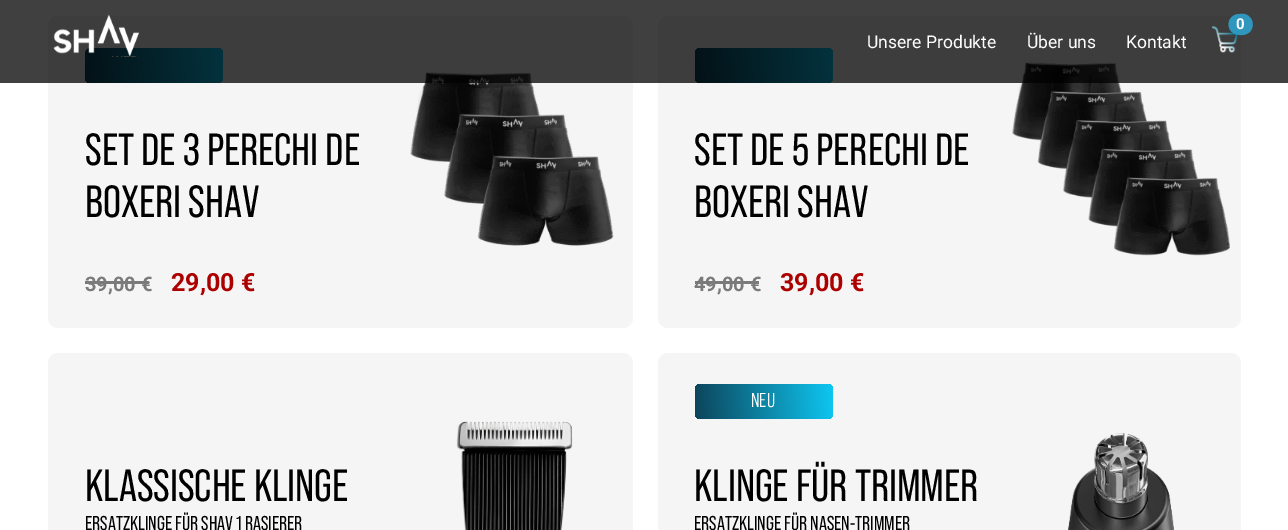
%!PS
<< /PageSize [1288 530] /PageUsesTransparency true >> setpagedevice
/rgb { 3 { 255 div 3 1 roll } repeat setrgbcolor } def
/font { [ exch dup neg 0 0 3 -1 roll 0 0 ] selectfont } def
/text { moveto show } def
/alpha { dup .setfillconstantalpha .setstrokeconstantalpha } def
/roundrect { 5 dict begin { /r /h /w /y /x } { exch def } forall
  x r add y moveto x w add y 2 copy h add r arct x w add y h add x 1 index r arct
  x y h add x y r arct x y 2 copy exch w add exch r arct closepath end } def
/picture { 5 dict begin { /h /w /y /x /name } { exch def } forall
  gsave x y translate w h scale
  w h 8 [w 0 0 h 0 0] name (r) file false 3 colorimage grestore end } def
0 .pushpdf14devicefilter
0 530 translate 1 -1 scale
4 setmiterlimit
255 255 255 rgb
0 0 1288 530 rectfill
245 245 245 rgb
48 16 585 312 10 roundrect fill
gsave 85 48 138 35 5 roundrect clip newpath
<< /ShadingType 2 /ColorSpace /DeviceRGB /Coords [223 59 84 71] /Extend [true true] /Function << /FunctionType 2 /Domain [0 1] /C0 [0.055 0.776 0.945] /C1 [0.047 0.267 0.353] /N 1 >> >> shfill grestore
(img_03.rgb) 410 72 204 174 picture
658 16 583 312 10 roundrect fill
gsave 695 48 138 35 5 roundrect clip newpath
<< /ShadingType 2 /ColorSpace /DeviceRGB /Coords [833 59 694 71] /Extend [true true] /Function << /FunctionType 2 /Domain [0 1] /C0 [0.055 0.776 0.945] /C1 [0.047 0.267 0.353] /N 1 >> >> shfill grestore
(img_04.rgb) 1012 62 218 194 picture
0.75 alpha
0 0 0 rgb
0 0 1288 83 rectfill
1 alpha
(img_01.rgb) 53 14 86 43 picture
(img_02.rgb) 1212 26 27 27 picture
47 151 189 rgb
1239.5 14 moveto 2 0 4.5 -0.5 6.5 0.5 rcurveto 6.5 2.5 9 11 4.5 16.5 rcurveto -2 2.5 -5 4 -8.5 4 rcurveto -18 1 -17 -21 -2.5 -21 rcurveto closepath fill
122 122 122 rgb
85 281 64 3 rectfill
695 281 64 3 rectfill
245 245 245 rgb
48 353 585 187 10 roundrect fill
(img_05.rgb) 456 421 117 109 picture
658 353 583 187 10 roundrect fill
gsave 695 384 138 35 5 roundrect clip newpath
<< /ShadingType 2 /ColorSpace /DeviceRGB /Coords [833 395 694 407] /Extend [true true] /Function << /FunctionType 2 /Domain [0 1] /C0 [0.055 0.776 0.945] /C1 [0.047 0.267 0.353] /N 1 >> >> shfill grestore
(img_06.rgb) 1067 433 107 97 picture
/Roboto-Bold 15 font
255 255 255 rgb
(0) 1236 29 text
/Roboto-Regular 17.5 font
(Unsere Produkte) 867 48 text
(Über uns) 1027 48 text
(Kontakt) 1126 48 text
/BebasNeue-Regular 45 font
0 0 0 rgb
(SET DE 3 PERECHI DE) 85 165 text
(BOXERI SHAV) 85 217 text
/Roboto-Bold 20 font
122 122 122 rgb
(39,00 €) 85 291 text
/Roboto-Bold 25 font
172 0 0 rgb
(29,00 €) 171 291 text
/BebasNeue-Regular 45 font
0 0 0 rgb
(SET DE 5 PERECHI DE) 694 165 text
(BOXERI SHAV) 694 217 text
/Roboto-Bold 20 font
122 122 122 rgb
(49,00 €) 694 291 text
/Roboto-Bold 25 font
172 0 0 rgb
(39,00 €) 780 291 text
/BebasNeue-Regular 45 font
0 0 0 rgb
(KLASSISCHE KLINGE) 85 501 text
/BebasNeue-Regular 20 font
(ERSATZKLINGE FÜR SHAV 1 RASIERER) 85 530 text
/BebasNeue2-Regular 20 font
255 255 255 rgb
(NEU) 751 407 text
/BebasNeue-Regular 45 font
0 0 0 rgb
(KLINGE FÜR TRIMMER) 694 501 text
/BebasNeue-Regular 20 font
(ERSATZKLINGE FÜR NASEN-TRIMMER) 694 530 text
.poppdf14devicefilter showpage
